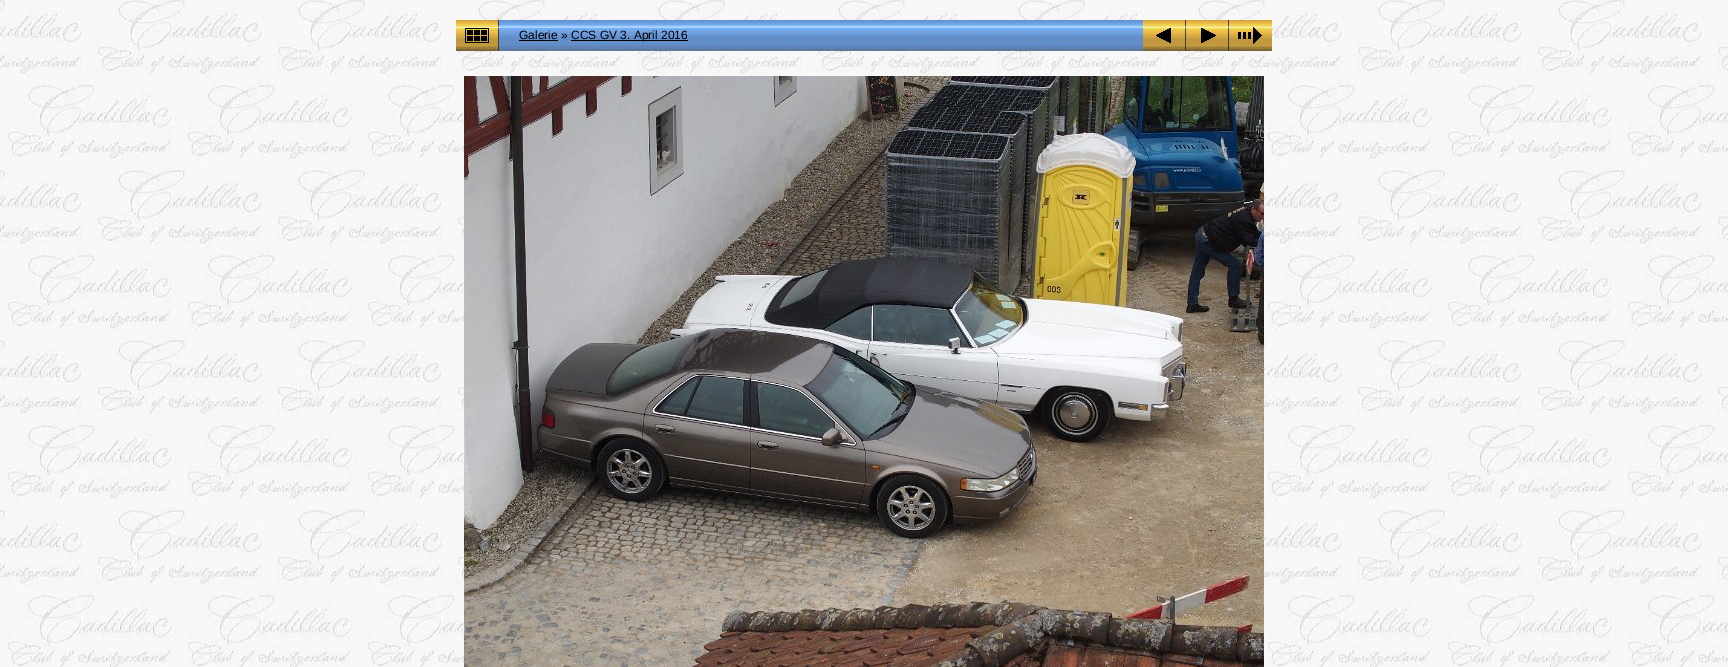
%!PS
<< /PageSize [1728 667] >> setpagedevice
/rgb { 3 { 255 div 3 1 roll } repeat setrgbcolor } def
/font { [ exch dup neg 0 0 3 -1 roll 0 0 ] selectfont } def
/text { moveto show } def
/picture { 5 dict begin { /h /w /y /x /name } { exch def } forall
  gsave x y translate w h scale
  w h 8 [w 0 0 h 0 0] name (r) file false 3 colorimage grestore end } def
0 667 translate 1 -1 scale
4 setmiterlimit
255 255 255 rgb
0 0 1728 667 rectfill
(img_01.rgb) 0 0 1728 667 picture
(img_02.rgb) 456 20 43 31 picture
(img_03.rgb) 499 20 20 31 picture
(img_04.rgb) 519 20 604 31 picture
0 0 0 rgb
519 40 39 1 rectfill
571 40 117 1 rectfill
(img_03.rgb) 1123 20 20 31 picture
(img_05.rgb) 1143 20 43 31 picture
(img_06.rgb) 1186 20 43 31 picture
(img_07.rgb) 1229 20 43 31 picture
(img_08.rgb) 464 76 800 591 picture
/LiberationSans-Regular 12 font
(Galerie ») 519 39 text
(CCS GV 3. April 2016) 571 39 text
showpage
